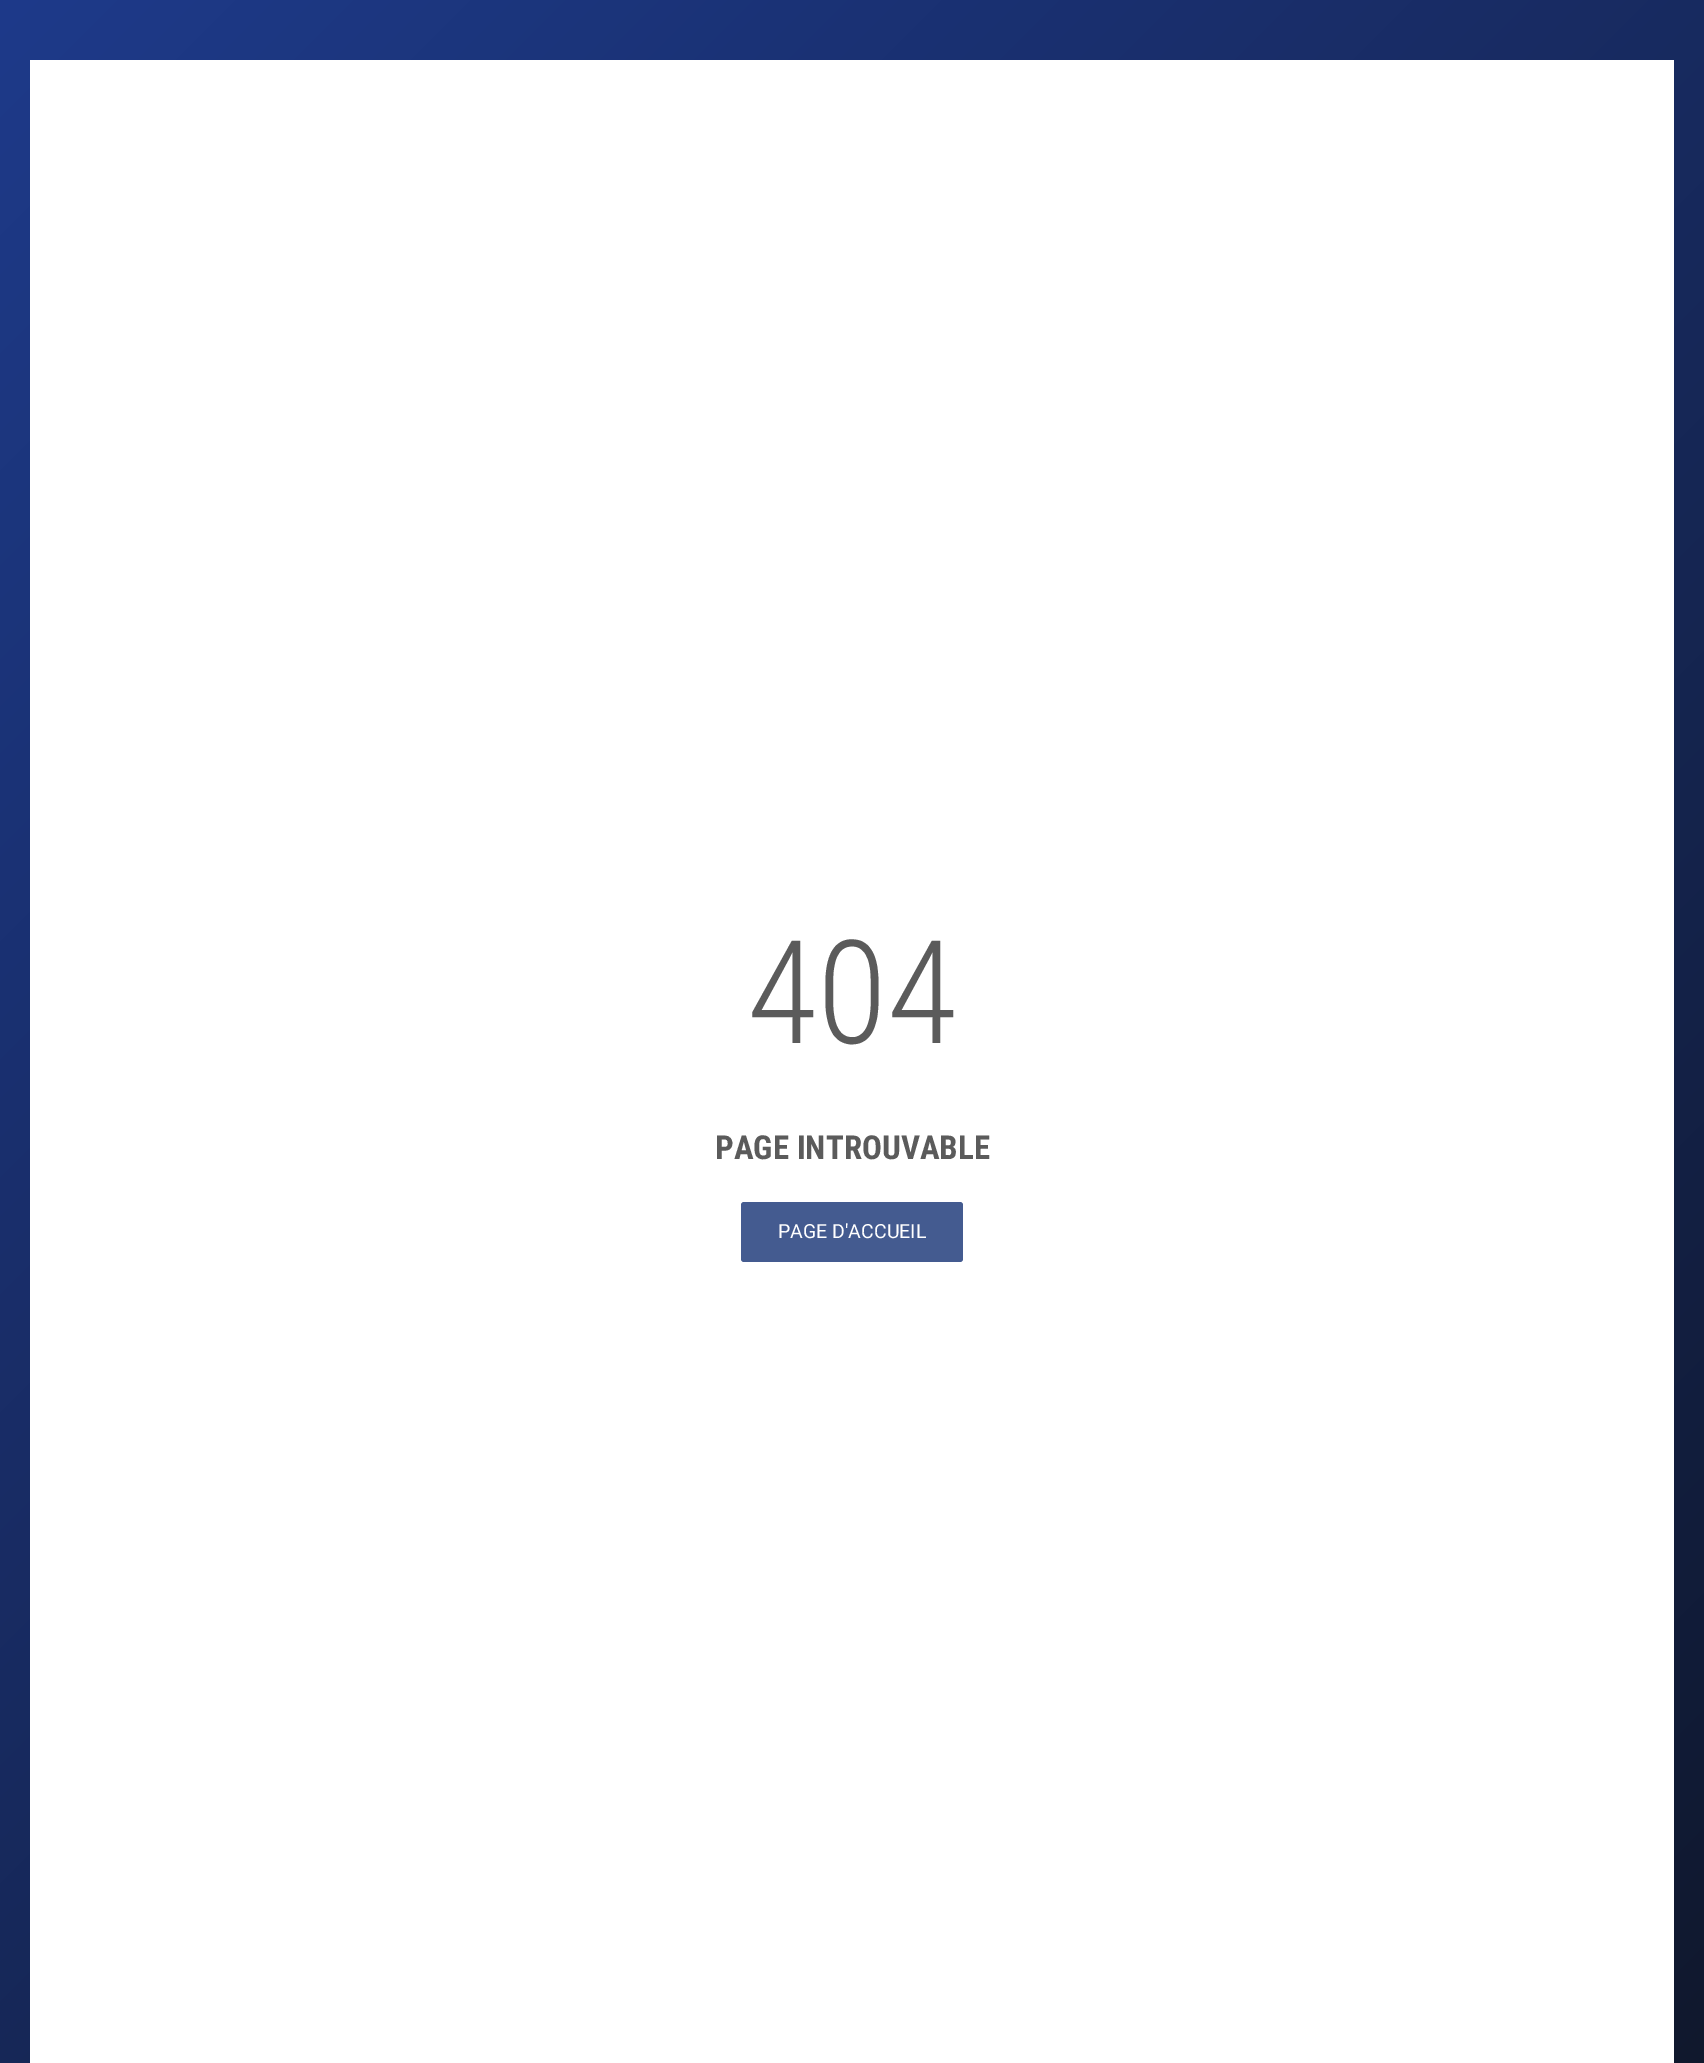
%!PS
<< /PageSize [1704 2063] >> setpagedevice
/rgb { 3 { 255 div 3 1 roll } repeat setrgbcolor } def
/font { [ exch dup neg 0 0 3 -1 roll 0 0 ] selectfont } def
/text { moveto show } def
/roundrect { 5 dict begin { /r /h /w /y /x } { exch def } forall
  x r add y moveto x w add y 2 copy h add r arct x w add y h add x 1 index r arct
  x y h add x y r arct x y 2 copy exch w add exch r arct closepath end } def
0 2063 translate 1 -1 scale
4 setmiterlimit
255 255 255 rgb
0 0 1704 2063 rectfill
gsave 0 0 moveto 1704 0 rlineto 0 2063 rlineto -1704 0 rlineto closepath clip newpath
<< /ShadingType 2 /ColorSpace /DeviceRGB /Coords [-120 120 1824 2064] /Extend [true true] /Function << /FunctionType 2 /Domain [0 1] /C0 [0.118 0.227 0.541] /C1 [0.059 0.09 0.165] /N 1 >> >> shfill grestore
30 60 1644 2003 rectfill
68 91 144 rgb
741 1202 222 60 3 roundrect fill
/RobotoCondensed-Light 144 font
91 91 91 rgb
(404) 747 1043 text
/RobotoCondensed-Bold 33 font
(PAGE INTROUVABLE) 715 1159 text
/Roboto-Regular 19.5 font
255 255 255 rgb
(PAGE D'ACCUEIL) 778 1238 text
showpage
